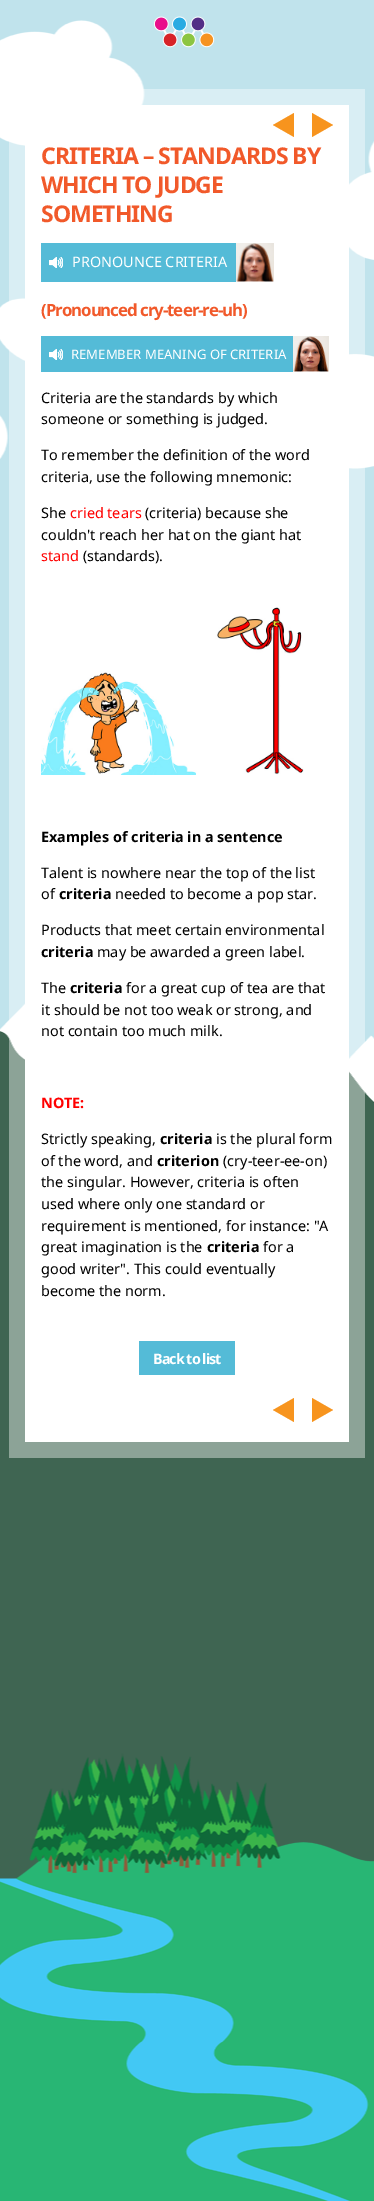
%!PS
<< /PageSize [374 2201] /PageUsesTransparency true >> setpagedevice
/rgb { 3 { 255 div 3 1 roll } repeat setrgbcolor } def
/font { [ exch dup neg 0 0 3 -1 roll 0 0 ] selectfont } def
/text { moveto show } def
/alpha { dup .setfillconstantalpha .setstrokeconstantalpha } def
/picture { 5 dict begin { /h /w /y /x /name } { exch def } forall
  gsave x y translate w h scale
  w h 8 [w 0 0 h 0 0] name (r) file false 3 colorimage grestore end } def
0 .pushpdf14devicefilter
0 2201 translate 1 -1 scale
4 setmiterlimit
192 227 236 rgb
0 0 374 2201 rectfill
(img_02.rgb) 0 20 374 2181 picture
(img_01.rgb) 154 16 61 32 picture
0.4 alpha
255 255 255 rgb
9 89 356 1369 rectfill
1 alpha
25 105 324 1337 rectfill
247 148 30 rgb
294 113 moveto 0 24 rlineto -21 -12 rlineto closepath 312 137 moveto 0 -24 rlineto 21 12 rlineto closepath fill
84 187 215 rgb
41 243 195 39 rectfill
(img_03.rgb) 49 257 14 11 picture
(img_04.rgb) 236 243 38 39 picture
41 336 252 36 rectfill
(img_03.rgb) 49 349 14 11 picture
(img_05.rgb) 293 336 36 36 picture
(img_06.rgb) 41 607 263 168 picture
139 1341 96 34 rectfill
247 148 30 rgb
294 1398 moveto 0 24 rlineto -21 -12 rlineto closepath 312 1422 moveto 0 -24 rlineto 21 12 rlineto closepath fill
/NotoSans-Bold 23 font
241 89 42 rgb
41 164 moveto -1 0 (CRITERIA – STANDARDS BY) ashow
41 193 moveto -1 0 (WHICH TO JUDGE) ashow
41 222 moveto -1 0 (SOMETHING) ashow
/NotoSans-Regular 14.4 font
255 255 255 rgb
(PRONOUNCE CRITERIA) 72 267 text
/NotoSans-Bold 16.8 font
241 89 42 rgb
41 316 moveto -1 0 (\(Pronounced cry-teer-re-uh\)) ashow
/NotoSans-Regular 13.1 font
255 255 255 rgb
(REMEMBER MEANING OF CRITERIA) 71 359 text
/NotoSans-Regular 14.4 font
0 0 0 rgb
(Criteria are the standards by which) 41 403 text
(someone or something is judged.) 41 424 text
(To remember the definition of the word) 41 460 text
(criteria, use the following mnemonic:) 41 482 text
(She) 41 518 text
255 0 0 rgb
(cried tears) 70 518 text
0 0 0 rgb
(\(criteria\) because she) 145 518 text
(couldn't reach her hat on the giant hat) 41 540 text
255 0 0 rgb
(stand) 41 561 text
0 0 0 rgb
(\(standards\).) 83 561 text
/NotoSans-Bold 14.4 font
(Examples of criteria in a sentence) 41 842 text
/NotoSans-Regular 14.4 font
(Talent is nowhere near the top of the list) 41 878 text
(of) 41 899 text
/NotoSans-Bold 14.4 font
(criteria) 59 899 text
/NotoSans-Regular 14.4 font
(needed to become a pop star.) 115 899 text
(Products that meet certain environmental) 41 935 text
/NotoSans-Bold 14.4 font
(criteria) 41 957 text
/NotoSans-Regular 14.4 font
(may be awarded a green label.) 97 957 text
(The) 41 993 text
/NotoSans-Bold 14.4 font
(criteria) 70 993 text
/NotoSans-Regular 14.4 font
(for a great cup of tea are that) 126 993 text
(it should be not too weak or strong, and) 41 1015 text
(not contain too much milk.) 41 1036 text
/NotoSans-Bold 14.4 font
255 0 0 rgb
(NOTE:) 41 1108 text
/NotoSans-Regular 14.4 font
0 0 0 rgb
(Strictly speaking,) 41 1144 text
/NotoSans-Bold 14.4 font
(criteria) 160 1144 text
/NotoSans-Regular 14.4 font
(is the plural form) 216 1144 text
(of the word, and) 41 1166 text
/NotoSans-Bold 14.4 font
(criterion) 157 1166 text
/NotoSans-Regular 14.4 font
(\(cry-teer-ee-on\)) 223 1166 text
(the singular. However, criteria is often) 41 1187 text
(used where only one standard or) 41 1209 text
(requirement is mentioned, for instance: "A) 41 1231 text
(great imagination is the) 41 1252 text
/NotoSans-Bold 14.4 font
(criteria) 207 1252 text
/NotoSans-Regular 14.4 font
(for a) 263 1252 text
(good writer". This could eventually) 41 1274 text
(become the norm.) 41 1296 text
/NotoSans-Bold 14.4 font
255 255 255 rgb
153 1364 moveto -1 0 (Back to list) ashow
.poppdf14devicefilter showpage
